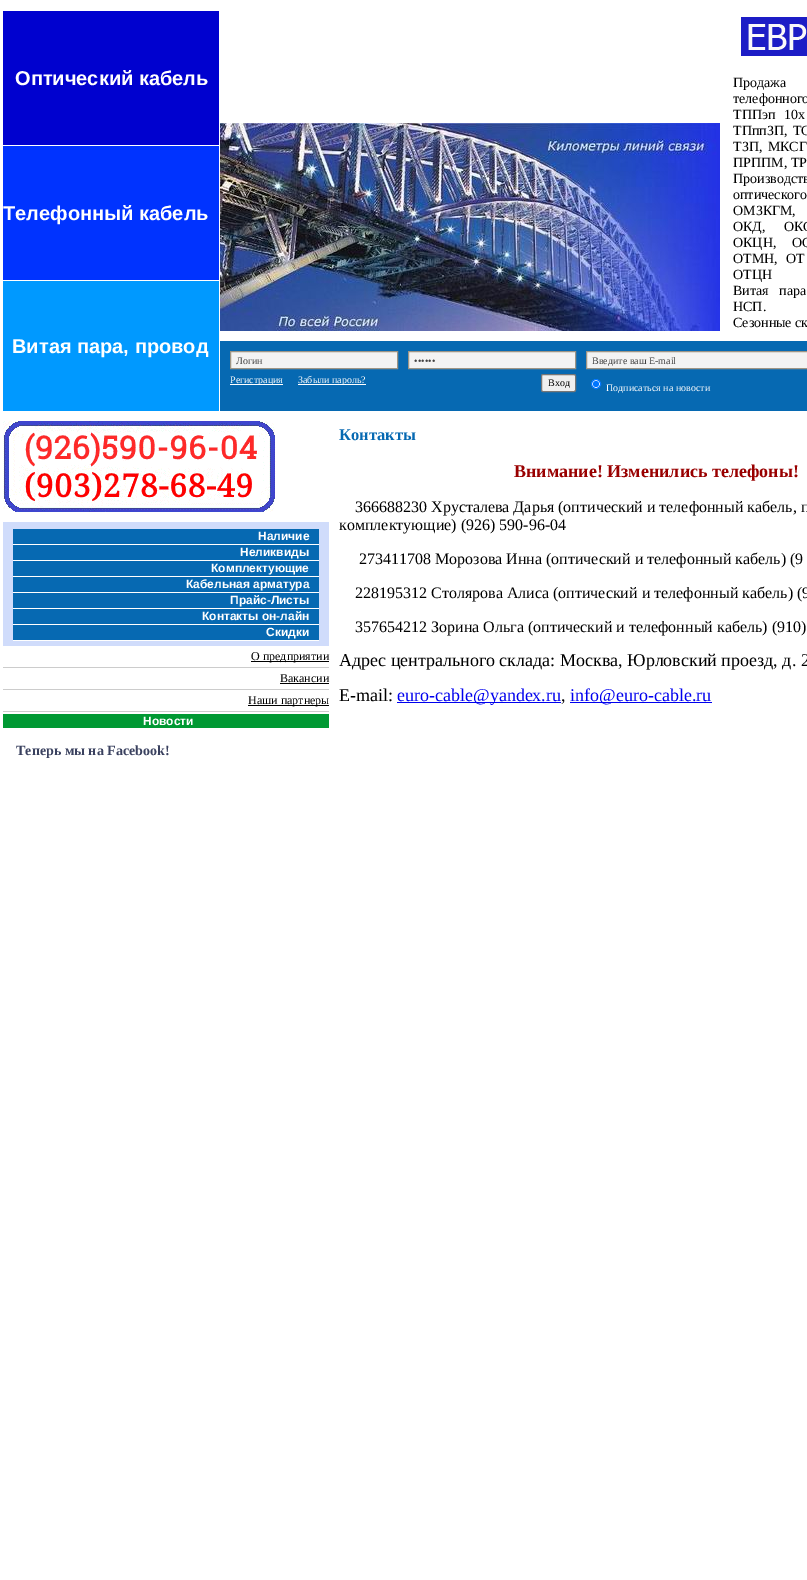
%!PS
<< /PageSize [807 1580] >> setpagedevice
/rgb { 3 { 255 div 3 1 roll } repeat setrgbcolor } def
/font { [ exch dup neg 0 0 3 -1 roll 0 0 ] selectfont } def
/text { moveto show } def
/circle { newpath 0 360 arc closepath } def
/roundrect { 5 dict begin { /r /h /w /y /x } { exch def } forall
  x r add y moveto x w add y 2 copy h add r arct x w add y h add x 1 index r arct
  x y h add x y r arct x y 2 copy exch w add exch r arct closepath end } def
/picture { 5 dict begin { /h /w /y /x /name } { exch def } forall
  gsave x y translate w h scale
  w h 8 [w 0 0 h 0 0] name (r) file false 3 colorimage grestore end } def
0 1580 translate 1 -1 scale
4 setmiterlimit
255 255 255 rgb
0 0 807 1580 rectfill
0 1 207 rgb
3 11 216 134 rectfill
0 51 255 rgb
3 146 216 134 rectfill
0 153 255 rgb
3 281 216 130 rectfill
(img_01.rgb) 220 123 500 208 picture
(img_02.rgb) 741 17 66 39 picture
6 105 178 rgb
220 341 587 70 rectfill
243 243 243 rgb
230.5 351.5 moveto 167 0 rlineto 0 17 rlineto -167 0 rlineto closepath gsave fill grestore
158 149 133 rgb
stroke
243 243 243 rgb
408.5 351.5 moveto 167 0 rlineto 0 17 rlineto -167 0 rlineto closepath gsave fill grestore
158 149 133 rgb
stroke
255 255 255 rgb
230 384 53 1 rectfill
298 384 68 1 rectfill
239 239 239 rgb
541.5 374.5 34 17 1.5 roundrect gsave fill grestore
118 118 118 rgb
stroke
243 243 243 rgb
586.5 351.5 moveto 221 0 rlineto 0 17 rlineto -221 0 rlineto closepath gsave fill grestore
158 149 133 rgb
stroke
255 255 255 rgb
596 384 4.5 circle gsave fill grestore
0 117 255 rgb
stroke
596 384 3 circle fill
(img_03.rgb) 3 421 273 91 picture
208 220 251 rgb
3 522 326 124 rectfill
6 105 178 rgb
13 529 306 15 rectfill
255 255 255 rgb
13 544 306 1 rectfill
6 105 178 rgb
13 545 306 15 rectfill
255 255 255 rgb
13 560 306 1 rectfill
6 105 178 rgb
13 561 306 15 rectfill
255 255 255 rgb
13 576 306 1 rectfill
6 105 178 rgb
13 577 306 15 rectfill
255 255 255 rgb
13 592 306 1 rectfill
6 105 178 rgb
13 593 306 15 rectfill
255 255 255 rgb
13 608 306 1 rectfill
6 105 178 rgb
13 609 306 15 rectfill
255 255 255 rgb
13 624 306 1 rectfill
6 105 178 rgb
13 625 306 15 rectfill
255 255 255 rgb
13 640 306 1 rectfill
204 204 204 rgb
3 667 326 1 rectfill
0 0 0 rgb
251 661 78 1 rectfill
204 204 204 rgb
3 689 326 1 rectfill
0 0 0 rgb
280 683 49 1 rectfill
204 204 204 rgb
3 711 326 1 rectfill
0 0 0 rgb
248 705 81 1 rectfill
0 153 51 rgb
3 714 326 14 rectfill
0 0 238 rgb
397 702 164 1 rectfill
570 702 142 1 rectfill
/LiberationSans-Bold 20 font
255 255 255 rgb
(Оптический кабель) 15 85 text
(Телефонный кабель) 3 220 text
(Витая пара, провод) 12 353 text
/LiberationSerif-Regular 14 font
0 0 0 rgb
733 87 moveto 18 0 32 (Продажа) widthshow
733 103 moveto 2 0 32 (телефонного) widthshow
733 119 moveto 5 0 32 (ТППэп 10х) widthshow
733 135 moveto 2 0 32 (ТПппЗП, ТС) widthshow
733 151 moveto 2 0 32 (ТЗП, МКСГ) widthshow
(ПРППМ, ТР) 733 167 text
733 183 moveto 18 0 32 (Производств) widthshow
733 199 moveto 3 0 32 (оптического) widthshow
733 215 moveto 8 0 32 (ОМЗКГМ,) widthshow
733 231 moveto 15 0 32 (ОКД, ОКС) widthshow
733 247 moveto 12 0 32 (ОКЦН, ОС) widthshow
733 263 moveto 5 0 32 (ОТМН, ОТ) widthshow
(ОТЦН) 733 279 text
733 295 moveto 7 0 32 (Витая пара) widthshow
(НСП.) 733 311 text
(Сезонные ск) 733 327 text
/LiberationSerif-Regular 10 font
64 64 64 rgb
(Логин) 236 364 text
(••••••) 414 364 text
255 255 255 rgb
(Регистрация) 230 383 text
(Забыли пароль?) 298 383 text
0 0 0 rgb
(Вход) 548 386 text
64 64 64 rgb
(Введите ваш E-mail) 592 364 text
255 255 255 rgb
(Подписаться на новости) 606 391 text
/LiberationSans-Bold 12 font
(Наличие) 258 540 text
(Неликвиды) 240 556 text
(Комплектующие) 211 572 text
(Кабельная арматура) 186 588 text
(Прайс-Листы) 230 604 text
(Контакты он-лайн) 202 620 text
(Скидки) 266 636 text
/LiberationSerif-Regular 12 font
0 0 0 rgb
(О предприятии) 251 660 text
(Вакансии) 280 682 text
(Наши партнеры) 248 704 text
/LiberationSans-Bold 12 font
255 255 255 rgb
(Новости) 143 725 text
/LiberationSerif-Bold 14 font
58 65 95 rgb
(Теперь мы на Facebook!) 16 755 text
/LiberationSerif-Bold 16.5 font
6 105 178 rgb
(Контакты) 339 440 text
/LiberationSerif-Bold 18 font
153 0 0 rgb
(Внимание! Изменились телефоны!) 514 477 text
/LiberationSerif-Regular 16 font
0 0 0 rgb
(366688230 Хрусталева Дарья \(оптический и телефонный кабель, п) 355 512 text
(комплектующие\) \(926\) 590-96-04) 339 530 text
(273411708 Морозова Инна \(оптический и телефонный кабель\) \(9) 359 564 text
(228195312 Столярова Алиса \(оптический и телефонный кабель\) \(9) 355 598 text
(357654212 Зорина Ольга \(оптический и телефонный кабель\) \(910\)) 355 632 text
/LiberationSerif-Regular 18 font
(Адрес центрального склада: Москва, Юрловский проезд, д. 2) 339 666 text
(E-mail:) 339 701 text
0 0 238 rgb
(euro-cable@yandex.ru) 397 701 text
0 0 0 rgb
(,) 561 701 text
0 0 238 rgb
(info@euro-cable.ru) 570 701 text
showpage
